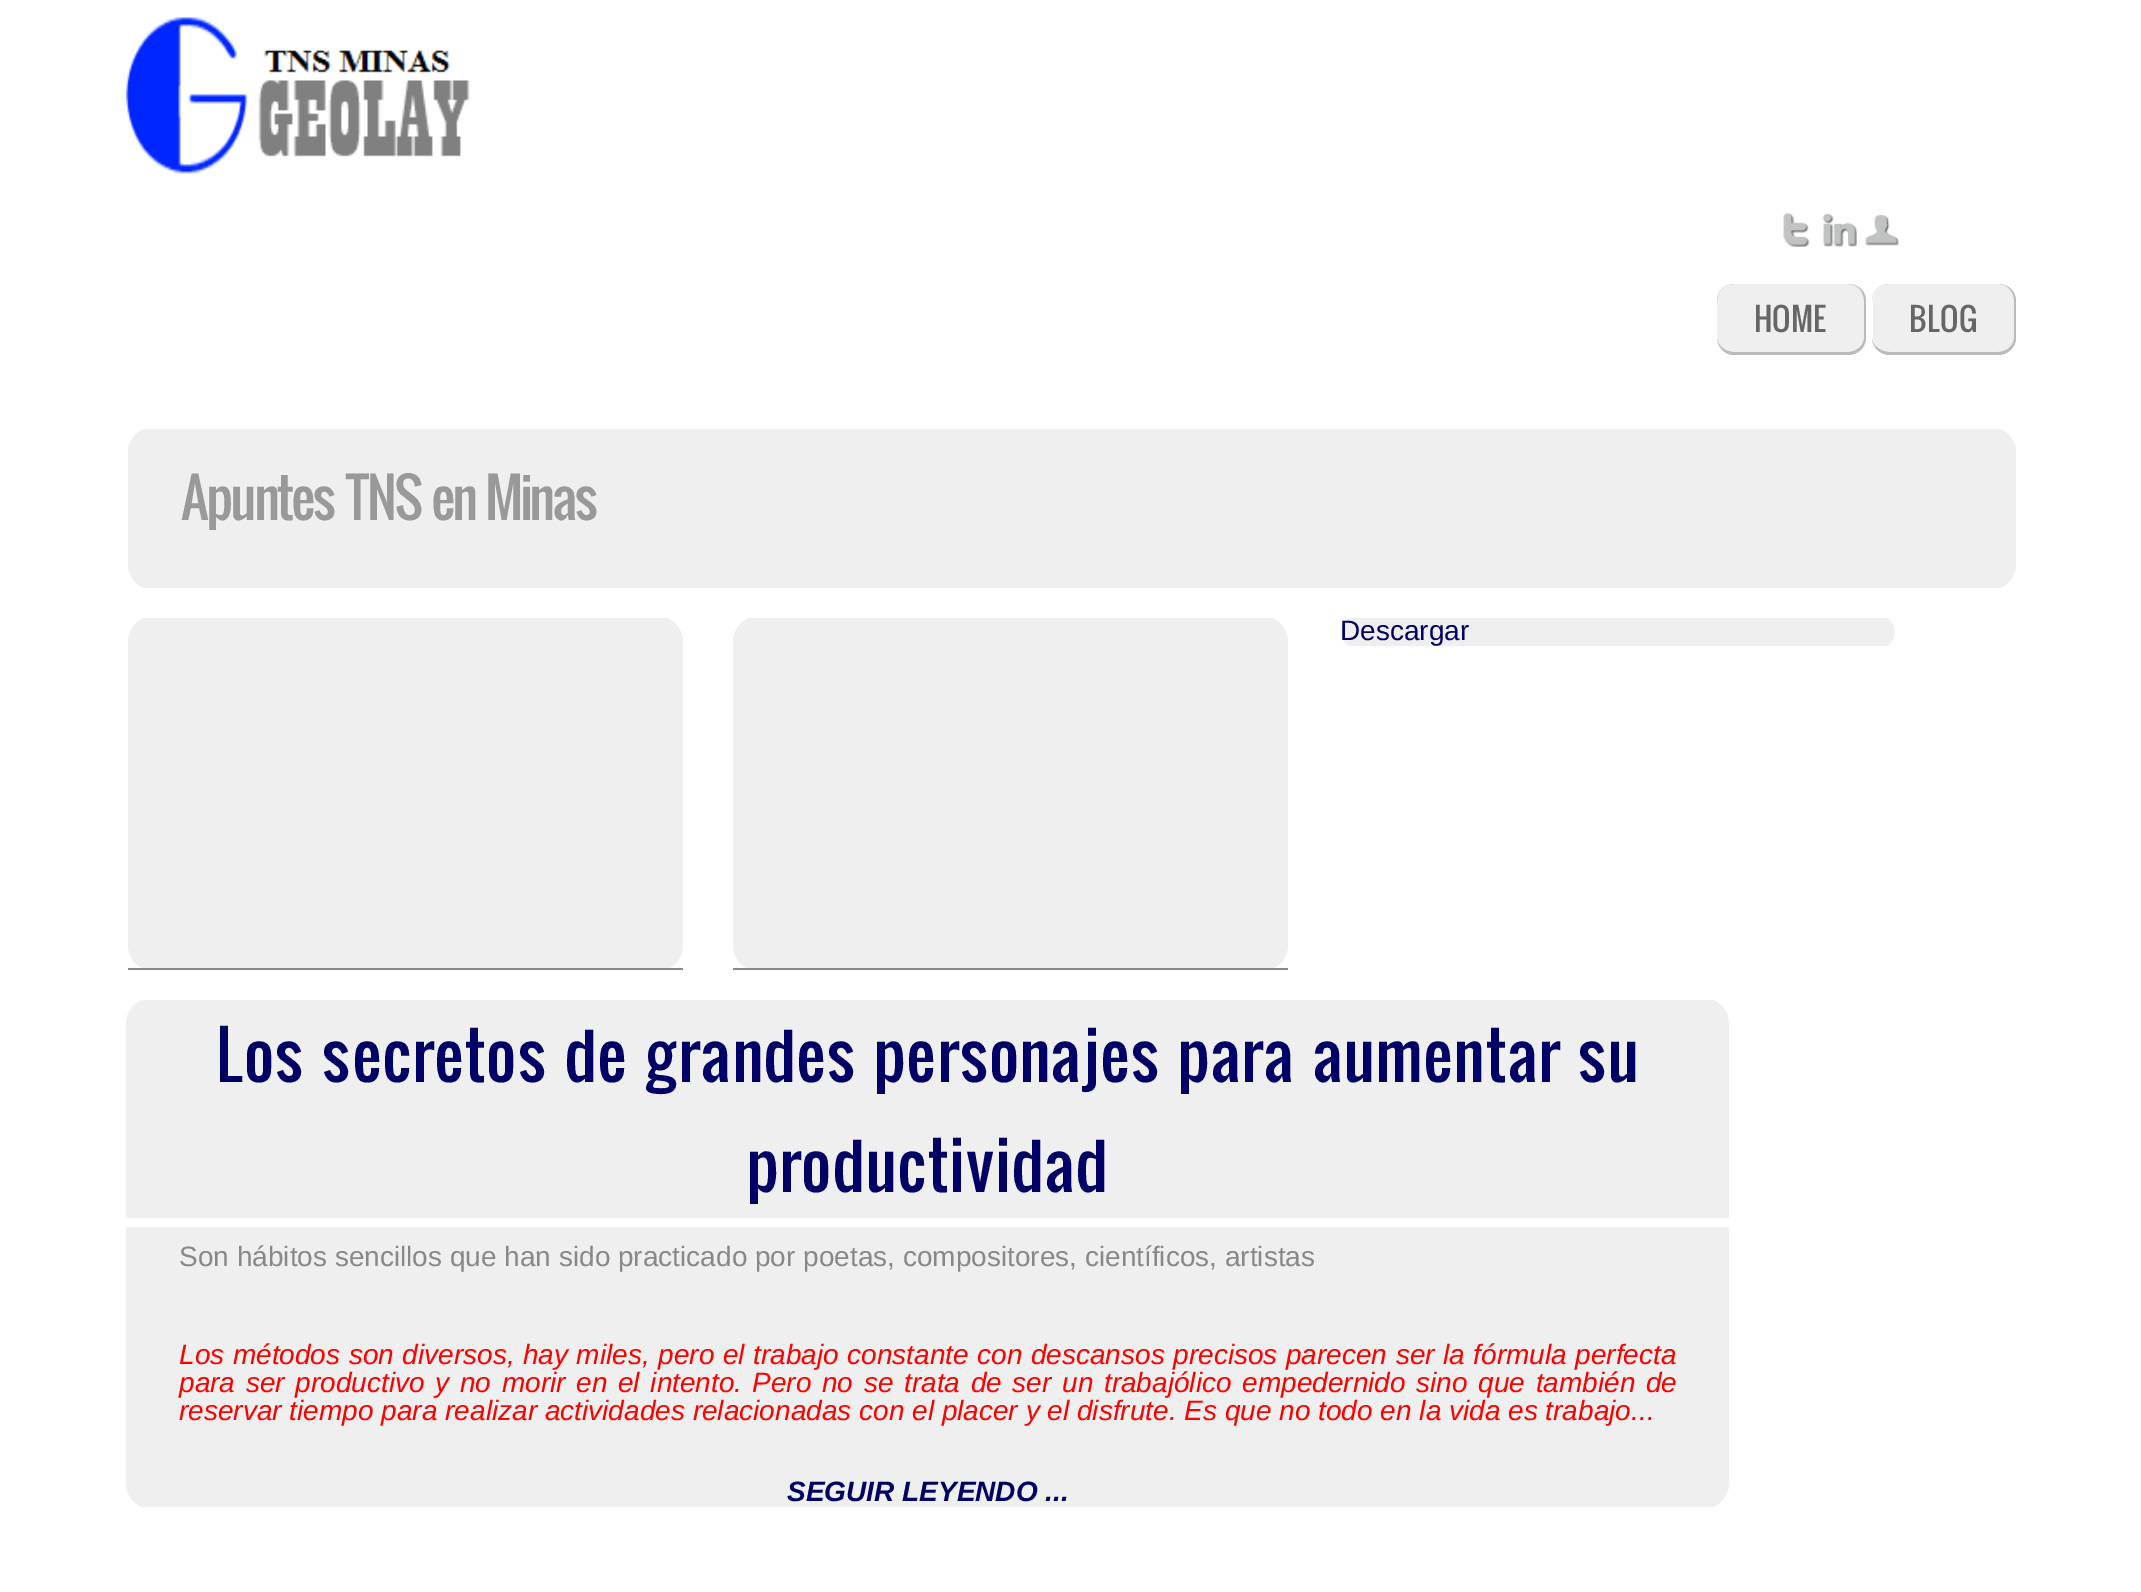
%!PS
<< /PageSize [2141 1592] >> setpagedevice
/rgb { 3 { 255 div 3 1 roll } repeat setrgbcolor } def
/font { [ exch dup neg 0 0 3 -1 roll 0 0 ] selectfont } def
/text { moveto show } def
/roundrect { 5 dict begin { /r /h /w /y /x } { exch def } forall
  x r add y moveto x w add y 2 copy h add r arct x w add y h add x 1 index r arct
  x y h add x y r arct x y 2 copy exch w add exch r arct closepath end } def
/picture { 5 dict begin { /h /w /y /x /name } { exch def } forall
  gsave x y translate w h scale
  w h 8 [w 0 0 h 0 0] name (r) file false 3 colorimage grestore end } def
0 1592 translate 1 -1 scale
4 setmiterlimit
255 255 255 rgb
0 0 2141 1592 rectfill
(img_01.rgb) 126 17 344 157 picture
(img_02.rgb) 1783 212 27 35 picture
(img_03.rgb) 1822 213 35 34 picture
(img_04.rgb) 1865 215 34 31 picture
239 239 239 rgb
1717 284 149 71 18 roundrect fill
187 187 187 rgb
1734 284 moveto 114 0 rlineto 10 0 18 7 18 17 rcurveto 0 37 rlineto 0 9 -8 17 -18 17 rcurveto -114 0 rlineto -9 0 -17 -8 -17 -17 rcurveto 0 -37 rlineto 0 -10 8 -17 17 -17 rcurveto closepath 1734 284 moveto 114 0 rlineto 9 0 16 7 16 17 rcurveto 0 37 rlineto 0 7 -7 14 -16 14 rcurveto -114 0 rlineto -9 0 -17 -7 -17 -14 rcurveto 0 -37 rlineto 0 -10 8 -17 17 -17 rcurveto closepath eofill
239 239 239 rgb
1873 284 143 71 18 roundrect fill
187 187 187 rgb
1890 284 moveto 108 0 rlineto 10 0 18 7 18 17 rcurveto 0 37 rlineto 0 9 -8 17 -18 17 rcurveto -108 0 rlineto -10 0 -18 -8 -18 -17 rcurveto 0 -37 rlineto 0 -10 8 -17 18 -17 rcurveto closepath 1890 284 moveto 108 0 rlineto 9 0 16 7 16 17 rcurveto 0 37 rlineto 0 7 -7 14 -16 14 rcurveto -108 0 rlineto -10 0 -18 -7 -18 -14 rcurveto 0 -37 rlineto 0 -10 8 -17 18 -17 rcurveto closepath eofill
239 239 239 rgb
128 427 1888 163 26 roundrect fill
255 255 255 rgb
142 427 1862 2 rectfill
142 588 1862 2 rectfill
239 239 239 rgb
128 616 555 355 26 roundrect fill
255 255 255 rgb
142 616 528 2 rectfill
142 970 528 1 rectfill
136 136 136 rgb
128 968 555 2 rectfill
239 239 239 rgb
733 616 555 355 26 roundrect fill
255 255 255 rgb
747 616 529 2 rectfill
747 970 529 1 rectfill
136 136 136 rgb
733 968 555 2 rectfill
239 239 239 rgb
1341 616 554 32 16 roundrect fill
255 255 255 rgb
1349 616 539 2 rectfill
1349 646 539 2 rectfill
239 239 239 rgb
126 998 1603 511 26 roundrect fill
255 255 255 rgb
140 998 1577 2 rectfill
140 1507 1577 2 rectfill
126 1218 1603 9 rectfill
/Oswald-Regular 31 font
102 102 102 rgb
(HOME) 1754 332 text
(BLOG) 1909 332 text
/Oswald-Regular 53.25 font
153 153 153 rgb
180 520 moveto -3.5 0 (Apuntes TNS en Minas) ashow
/LiberationSans-Regular 28 font
0 0 102 rgb
(Descargar) 1340 640 text
/Oswald-Regular 64.4 font
(Los secretos de grandes personajes para aumentar su) 216 1082 text
(productividad) 746 1192 text
/LiberationSans-Regular 28 font
136 136 136 rgb
(Son hábitos sencillos que han sido practicado por poetas, compositores, científicos, artistas) 179 1266 text
/LiberationSans-Italic 28 font
255 0 0 rgb
179 1364 moveto 0.75 0 32 (Los métodos son diversos, hay miles, pero el trabajo constante con descansos precisos parecen ser la fórmula perfecta) widthshow
179 1392 moveto 2.9 0 32 (para ser productivo y no morir en el intento.) widthshow
752 1392 moveto 2.9 0 32 (Pero no se trata de ser un trabajólico empedernido sino que también de) widthshow
(reservar tiempo para realizar actividades relacionadas con el placer y el disfrute. Es que no todo en la vida es trabajo...) 179 1420 text
/LiberationSans-BoldItalic 28 font
0 0 102 rgb
(SEGUIR LEYENDO ...) 787 1501 text
showpage
